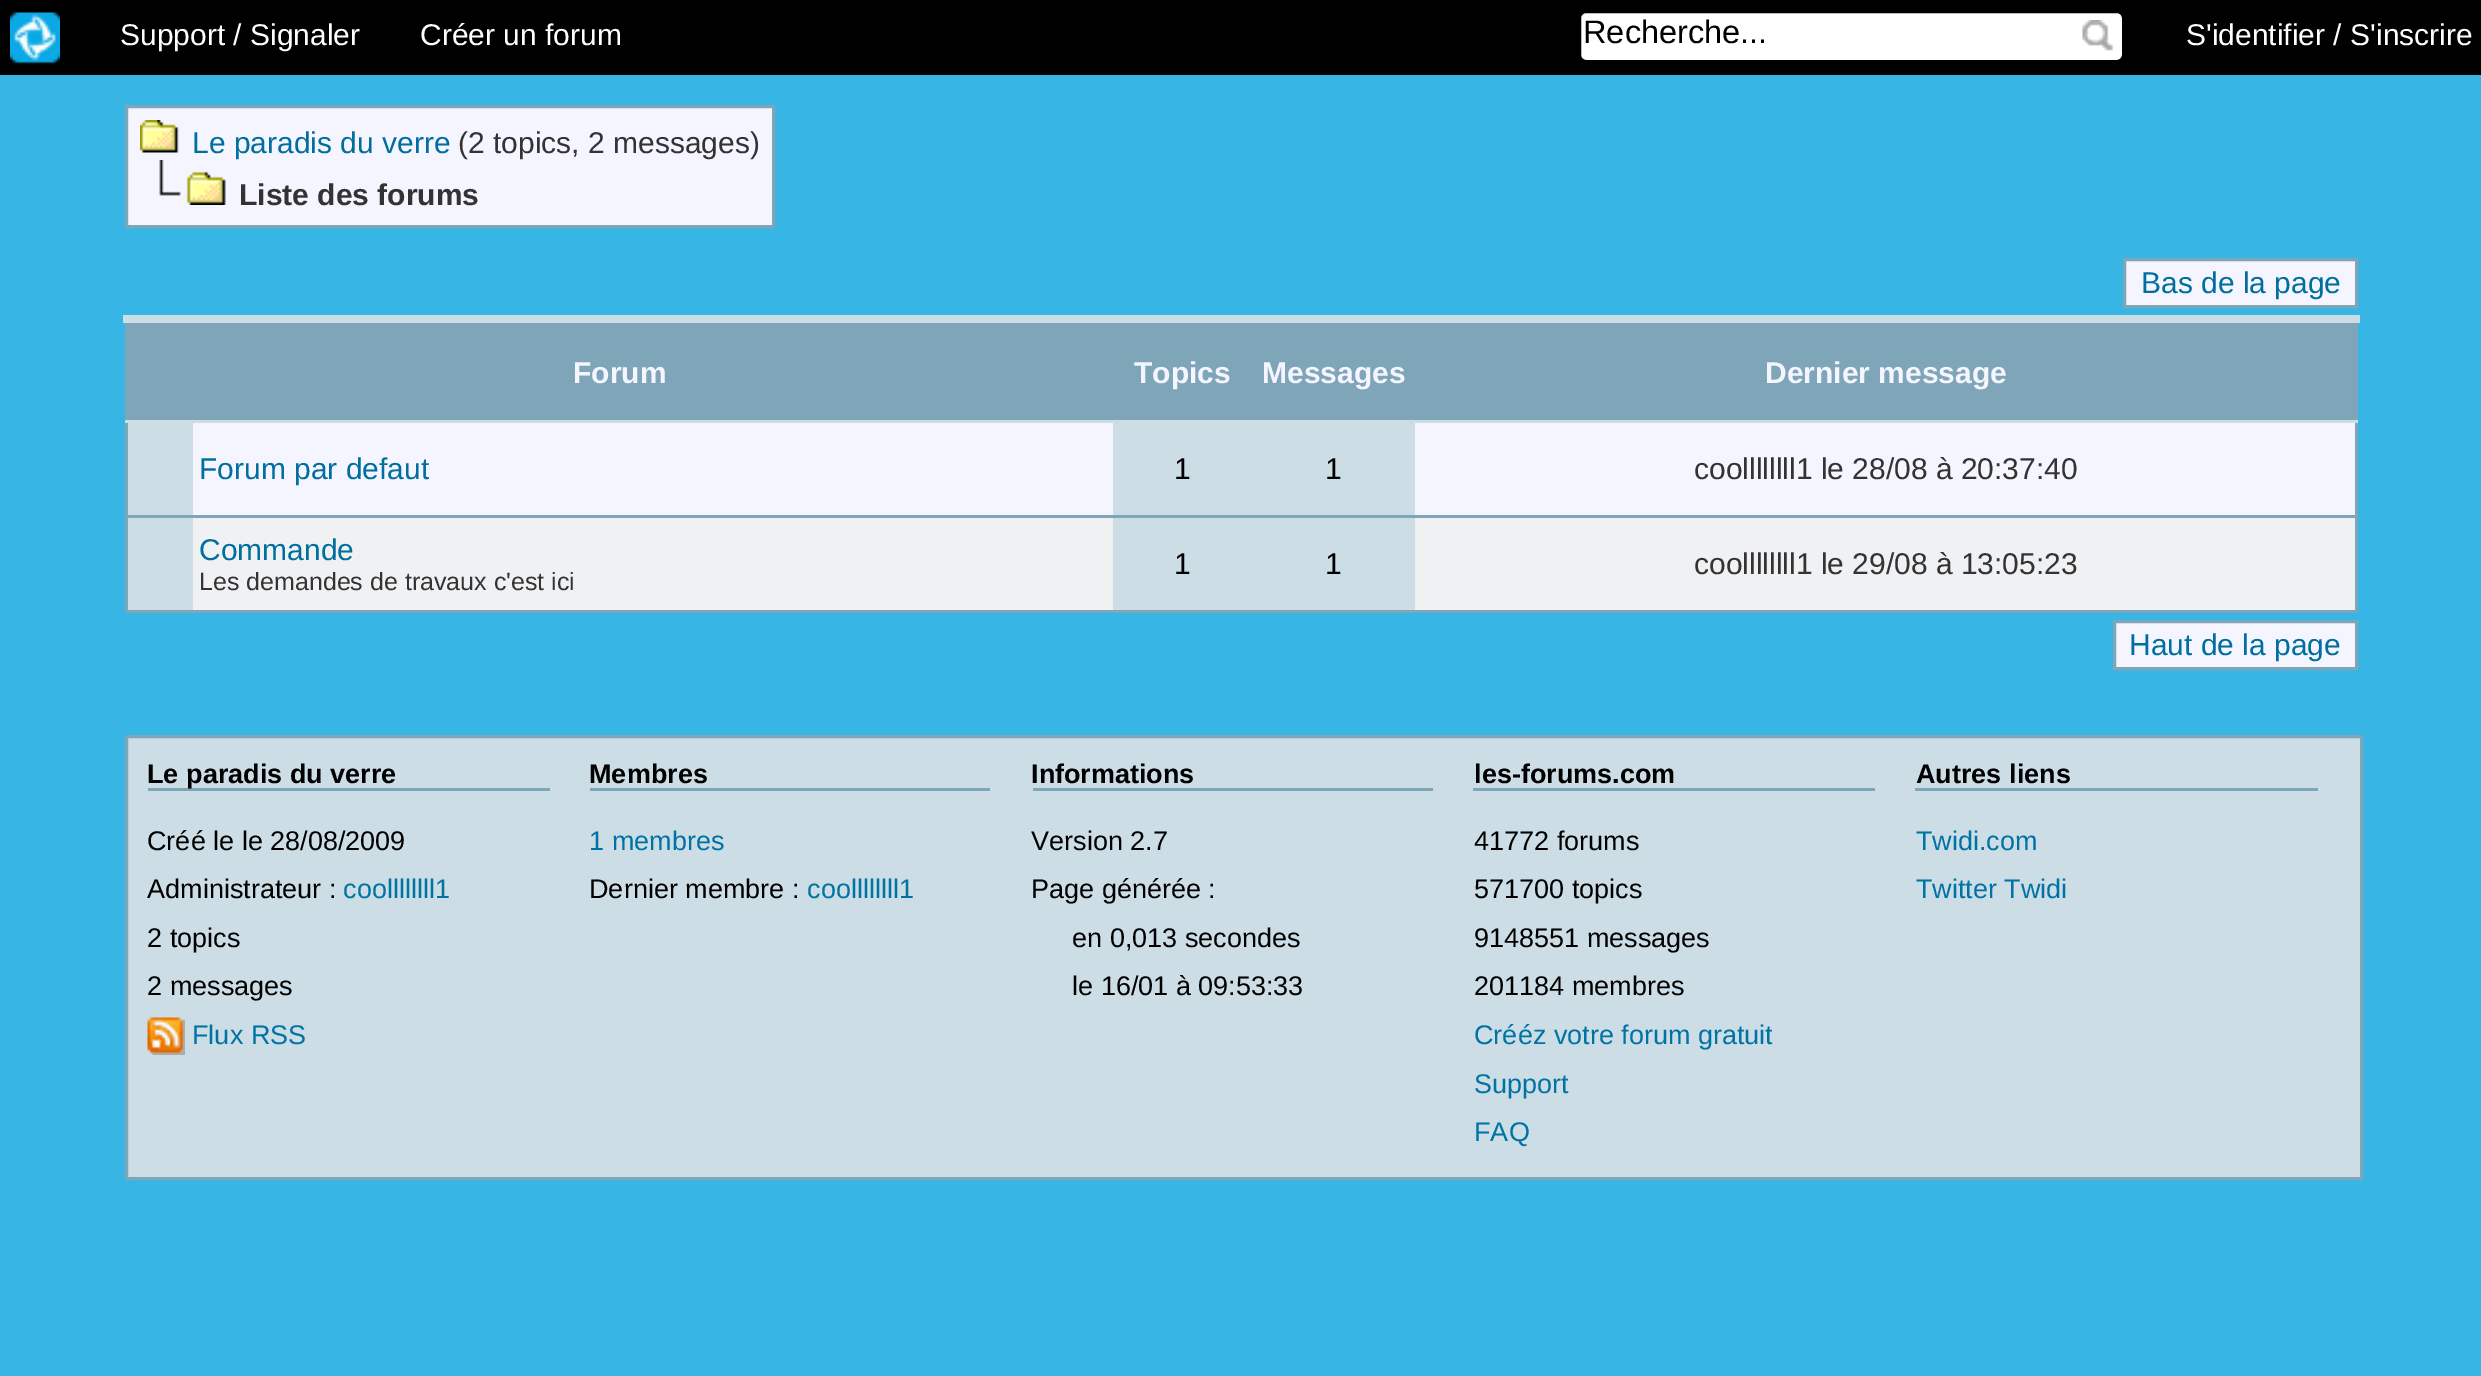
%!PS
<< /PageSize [2481 1376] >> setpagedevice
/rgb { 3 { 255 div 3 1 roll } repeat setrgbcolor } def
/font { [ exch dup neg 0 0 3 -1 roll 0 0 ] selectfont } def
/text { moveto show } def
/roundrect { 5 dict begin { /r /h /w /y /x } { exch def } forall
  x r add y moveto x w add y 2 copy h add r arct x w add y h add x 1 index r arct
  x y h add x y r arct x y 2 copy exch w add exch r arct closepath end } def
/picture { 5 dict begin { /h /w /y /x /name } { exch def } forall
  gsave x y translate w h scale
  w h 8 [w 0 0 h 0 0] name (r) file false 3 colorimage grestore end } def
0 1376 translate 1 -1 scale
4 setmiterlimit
55 182 229 rgb
0 0 2481 1376 rectfill
0 0 0 rgb
0 0 2481 75 rectfill
(img_01.rgb) 10 12 50 52 picture
255 255 255 rgb
1579.5 11.5 544 50 6.5 roundrect gsave fill grestore
0 0 0 rgb
3 setlinewidth
stroke
(img_02.rgb) 2082 20 32 31 picture
245 245 255 rgb
126.5 106.5 moveto 647 0 rlineto 0 120 rlineto -647 0 rlineto closepath gsave fill grestore
127 166 184 rgb
stroke
(img_03.rgb) 140 120 39 33 picture
(img_04.rgb) 159 160 67 45 picture
245 245 255 rgb
2124.5 259.5 moveto 232 0 rlineto 0 47 rlineto -232 0 rlineto closepath gsave fill grestore
127 166 184 rgb
stroke
245 245 255 rgb
193 423 2162 92 rectfill
127 166 184 rgb
2355 315 3 298 rectfill
125 610 2233 3 rectfill
125 315 3 298 rectfill
128 323 2227 97 rectfill
204 221 229 rgb
125 420 2233 3 rectfill
123 315 2237 8 rectfill
128 423 65 92 rectfill
1113 423 302 92 rectfill
128 518 65 92 rectfill
240 241 243 rgb
193 518 920 92 rectfill
204 221 229 rgb
1113 518 302 92 rectfill
240 241 243 rgb
1415 518 940 92 rectfill
127 166 184 rgb
125 515 2233 3 rectfill
245 245 255 rgb
2114.5 621.5 moveto 242 0 rlineto 0 47 rlineto -242 0 rlineto closepath gsave fill grestore
127 166 184 rgb
stroke
204 221 229 rgb
126.5 736.5 moveto 2235 0 rlineto 0 442 rlineto -2235 0 rlineto closepath gsave fill grestore
127 166 184 rgb
stroke
148 788 402 3 rectfill
(img_05.rgb) 147 1017 38 38 picture
590 788 400 3 rectfill
1033 788 400 3 rectfill
1473 788 402 3 rectfill
1915 788 403 3 rectfill
/LiberationSans-Regular 30 font
255 255 255 rgb
(Support / Signaler) 120 45 text
(Créer un forum) 420 45 text
/LiberationSans-Regular 32.5 font
0 0 0 rgb
(Recherche...) 1583 43 text
/LiberationSans-Regular 30 font
255 255 255 rgb
(S'identifier / S'inscrire) 2186 45 text
0 110 159 rgb
(Le paradis du verre) 192 153 text
51 51 51 rgb
(\(2 topics, 2 messages\)) 458 153 text
/LiberationSans-Bold 30 font
(Liste des forums) 239 205 text
/LiberationSans-Regular 30 font
0 110 159 rgb
(Bas de la page) 2141 293 text
/LiberationSans-Bold 30 font
245 245 255 rgb
(Forum) 573 383 text
(Topics) 1134 383 text
(Messages) 1262 383 text
(Dernier message) 1765 383 text
/LiberationSans-Regular 30 font
0 110 159 rgb
(Forum par defaut) 199 479 text
0 0 0 rgb
(1) 1174 479 text
(1) 1325 479 text
51 51 51 rgb
(coollllllll1 le 28/08 à 20:37:40) 1694 479 text
0 110 159 rgb
(Commande) 199 560 text
/LiberationSans-Regular 25 font
51 51 51 rgb
(Les demandes de travaux c'est ici) 199 590 text
/LiberationSans-Regular 30 font
0 0 0 rgb
(1) 1174 574 text
(1) 1325 574 text
51 51 51 rgb
(coollllllll1 le 29/08 à 13:05:23) 1694 574 text
0 110 159 rgb
(Haut de la page) 2129 655 text
/LiberationSans-Bold 27 font
0 0 0 rgb
(Le paradis du verre) 147 783 text
/LiberationSans-Regular 27 font
(Créé le le 28/08/2009) 147 850 text
(Administrateur :) 147 898 text
0 115 165 rgb
(coollllllll1) 343 898 text
0 0 0 rgb
(2 topics) 147 947 text
(2 messages) 147 995 text
0 115 165 rgb
(Flux RSS) 192 1044 text
/LiberationSans-Bold 27 font
0 0 0 rgb
(Membres) 589 783 text
/LiberationSans-Regular 27 font
0 115 165 rgb
(1 membres) 589 850 text
0 0 0 rgb
(Dernier membre :) 589 898 text
0 115 165 rgb
(coollllllll1) 807 898 text
/LiberationSans-Bold 27 font
0 0 0 rgb
(Informations) 1031 783 text
/LiberationSans-Regular 27 font
(Version 2.7) 1031 850 text
(Page générée :) 1031 898 text
(en 0,013 secondes) 1072 947 text
(le 16/01 à 09:53:33) 1072 995 text
/LiberationSans-Bold 27 font
(les-forums.com) 1474 783 text
/LiberationSans-Regular 27 font
(41772 forums) 1474 850 text
(571700 topics) 1474 898 text
(9148551 messages) 1474 947 text
(201184 membres) 1474 995 text
0 115 165 rgb
(Crééz votre forum gratuit) 1474 1044 text
(Support) 1474 1093 text
(FAQ) 1474 1141 text
/LiberationSans-Bold 27 font
0 0 0 rgb
(Autres liens) 1916 783 text
/LiberationSans-Regular 27 font
0 115 165 rgb
(Twidi.com) 1916 850 text
(Twitter Twidi) 1916 898 text
showpage
